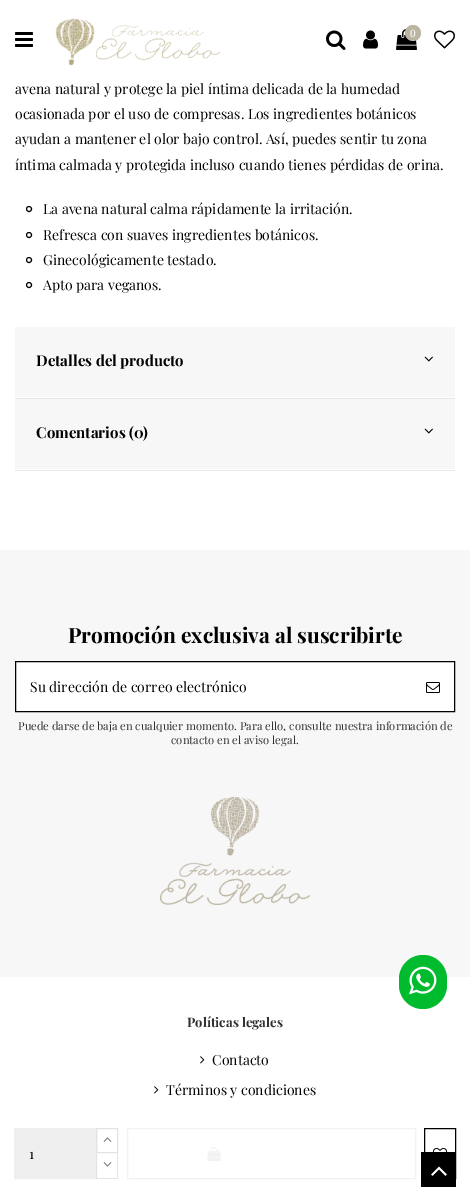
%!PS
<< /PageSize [470 1201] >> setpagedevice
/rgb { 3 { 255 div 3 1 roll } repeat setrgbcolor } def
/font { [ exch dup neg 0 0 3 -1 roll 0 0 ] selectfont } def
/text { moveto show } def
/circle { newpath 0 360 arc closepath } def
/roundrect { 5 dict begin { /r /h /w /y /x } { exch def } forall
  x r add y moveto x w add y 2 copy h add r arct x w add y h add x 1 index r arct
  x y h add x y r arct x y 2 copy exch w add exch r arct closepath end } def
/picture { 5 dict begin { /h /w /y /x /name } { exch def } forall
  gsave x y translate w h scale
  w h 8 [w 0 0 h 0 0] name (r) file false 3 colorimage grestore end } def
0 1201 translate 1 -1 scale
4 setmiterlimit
255 255 255 rgb
0 0 470 1201 rectfill
(img_01.rgb) 15 32 18 15 picture
(img_02.rgb) 55 18 165 47 picture
(img_03.rgb) 326 30 20 20 picture
(img_04.rgb) 363 30 15 19 picture
(img_05.rgb) 396 29 21 21 picture
188 180 162 rgb
413 33 8 circle fill
(img_06.rgb) 434 30 21 19 picture
0 0 0 rgb
29 209 2.5 circle stroke
29 235 2.5 circle stroke
29 260 2.5 circle stroke
29 285 2.5 circle stroke
231 231 231 rgb
15 398 440 1 rectfill
247 247 247 rgb
15 327 440 70 rectfill
(img_07.rgb) 424 356 9 6 picture
231 231 231 rgb
15 470 440 1 rectfill
247 247 247 rgb
15 399 440 70 rectfill
(img_07.rgb) 424 428 9 6 picture
239 239 239 rgb
14.5 1128.5 moveto 82 0 rlineto 0 50 rlineto -82 0 rlineto closepath gsave fill grestore
stroke
227 227 227 rgb
96.5 1128.5 21 24 rectstroke
(img_08.rgb) 103 1137 9 5 picture
255 255 255 rgb
96 1153 1 25 rectfill
227 227 227 rgb
118 1153 moveto 0 26 rlineto -1 -1 rlineto 0 -24 rlineto closepath fill
96 1178 22 1 rectfill
96 1179 moveto 0 -26 rlineto 1 1 rlineto 0 24 rlineto closepath fill
(img_09.rgb) 103 1162 9 5 picture
242 242 242 rgb
127.5 1128.5 288 50 rectstroke
(img_10.rgb) 207 1147 14 14 picture
0 0 0 rgb
424.5 1128.5 31 50 rectstroke
(img_11.rgb) 433 1148 14 4 picture
247 247 247 rgb
0 550 470 427 rectfill
255 255 255 rgb
15.5 661.5 moveto 439 0 rlineto 0 50 rlineto -439 0 rlineto closepath gsave fill grestore
0 0 0 rgb
stroke
(img_12.rgb) 426 682 14 11 picture
(img_13.rgb) 160 797 150 108 picture
0 187 45 rgb
399 955 48 54 24 roundrect fill
(img_14.rgb) 409 966 28 29 picture
(img_15.rgb) 200 1056 5 8 picture
(img_15.rgb) 154 1086 5 8 picture
0 0 0 rgb
421 1152 35 35 rectfill
(img_16.rgb) 431 1166 16 10 picture
/LiberationSerif-Regular 11.2 font
255 255 255 rgb
(0) 410 37 text
/PlayfairDisplay-Regular 14 font
0 0 0 rgb
(avena natural y protege la piel íntima delicada de la humedad) 15 94 text
255 255 255 rgb
210 82 2 1 rectfill
0 0 0 rgb
(ocasionada por el uso de compresas. Los ingredientes botánicos) 15 119 text
(ayudan a mantener el olor bajo control. Así, puedes sentir tu zona) 15 144 text
(íntima calmada y protegida incluso cuando tienes pérdidas de orina.) 15 170 text
(La avena natural calma rápidamente la irritación.) 43 214 text
(Refresca con suaves ingredientes botánicos.) 43 240 text
(Ginecológicamente testado.) 43 265 text
(Apto para veganos.) 43 290 text
/PlayfairDisplay-Bold 15 font
(Detalles del producto) 36 366 text
(Comentarios \(0\)) 36 438 text
/PlayfairDisplay-Regular 14 font
(1) 29 1159 text
/PlayfairDisplay-Bold 21 font
(Promoción exclusiva al suscribirte) 68 643 text
/PlayfairDisplay-Regular 14 font
(Su dirección de correo electrónico) 30 692 text
/PlayfairDisplay-Regular 11.2 font
49 49 49 rgb
(Puede darse de baja en cualquier momento. Para ello, consulte nuestra información de) 18 730 text
(contacto en el aviso legal.) 171 744 text
/PlayfairDisplay-Bold 13 font
(Políticas legales) 187 1027 text
/PlayfairDisplay-Regular 14 font
0 0 0 rgb
(Contacto) 212 1065 text
(Términos y condiciones) 166 1095 text
showpage
